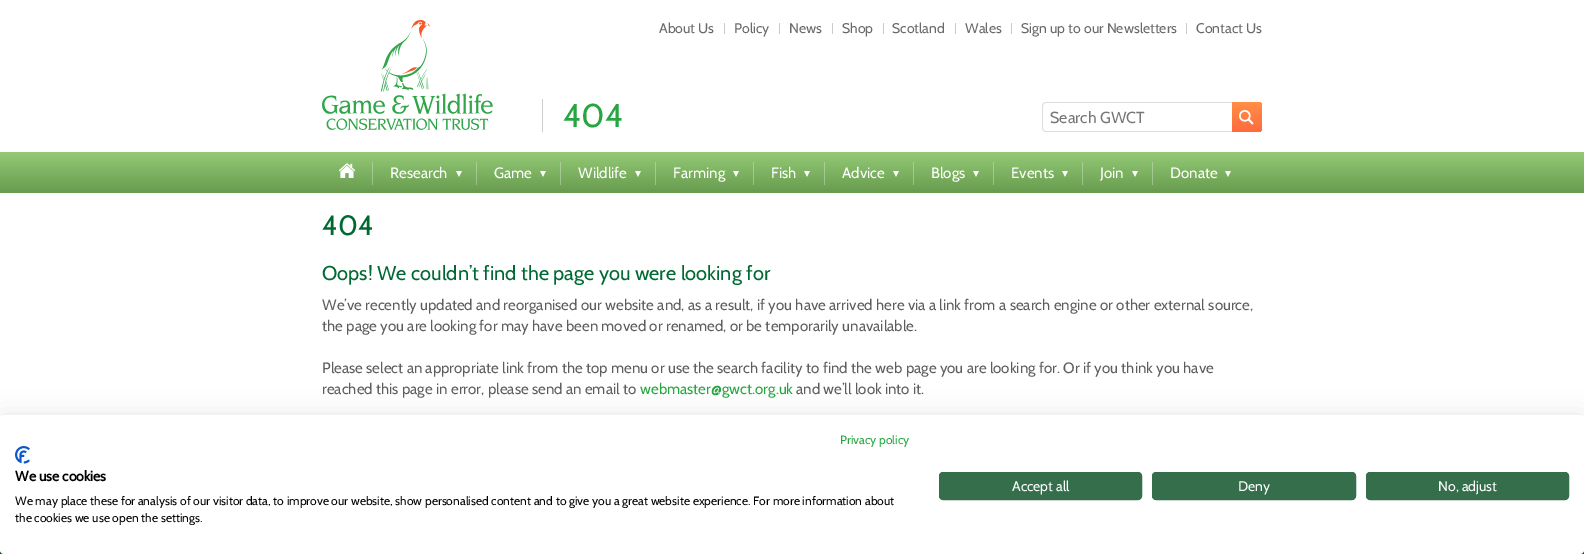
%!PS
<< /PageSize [1584 554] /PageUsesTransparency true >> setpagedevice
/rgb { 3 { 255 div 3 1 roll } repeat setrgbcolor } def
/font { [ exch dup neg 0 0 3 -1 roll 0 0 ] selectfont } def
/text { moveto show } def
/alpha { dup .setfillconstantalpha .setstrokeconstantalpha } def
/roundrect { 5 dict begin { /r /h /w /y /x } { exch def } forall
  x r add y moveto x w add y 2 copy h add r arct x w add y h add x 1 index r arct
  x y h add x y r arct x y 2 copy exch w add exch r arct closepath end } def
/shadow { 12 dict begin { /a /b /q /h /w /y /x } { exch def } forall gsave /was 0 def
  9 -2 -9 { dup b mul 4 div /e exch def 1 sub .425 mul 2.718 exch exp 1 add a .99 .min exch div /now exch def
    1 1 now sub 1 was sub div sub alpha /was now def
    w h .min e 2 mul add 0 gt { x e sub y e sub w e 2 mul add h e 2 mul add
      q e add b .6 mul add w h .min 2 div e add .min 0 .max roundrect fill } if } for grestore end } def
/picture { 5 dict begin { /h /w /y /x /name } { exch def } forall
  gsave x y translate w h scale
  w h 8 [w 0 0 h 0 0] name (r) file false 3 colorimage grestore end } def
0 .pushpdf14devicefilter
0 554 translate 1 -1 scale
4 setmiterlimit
255 255 255 rgb
0 0 1584 554 rectfill
204 204 204 rgb
724 23 1 11 rectfill
779 23 1 11 rectfill
832 23 1 11 rectfill
883 23 1 11 rectfill
955 23 1 11 rectfill
1011 23 1 11 rectfill
1186 23 1 11 rectfill
(img_01.rgb) 322 20 171 110 picture
542 99 1 33 rectfill
221 221 221 rgb
1046 102 moveto 186 0 rlineto 0 30 rlineto -186 0 rlineto -2 0 -4 -2 -4 -4 rcurveto 0 -22 rlineto 0 -2 2 -4 4 -4 rcurveto closepath 1046 103 moveto 186 0 rlineto 0 28 rlineto -186 0 rlineto -2 0 -3 -1 -3 -3 rcurveto 0 -22 rlineto 0 -2 1 -3 3 -3 rcurveto closepath eofill
gsave 1232 102 moveto 26 0 rlineto 2 0 4 2 4 4 rcurveto 0 22 rlineto 0 2 -2 4 -4 4 rcurveto -26 0 rlineto closepath clip newpath
<< /ShadingType 2 /ColorSpace /DeviceRGB /Coords [1247 102 1247 132] /Extend [true true] /Function << /FunctionType 2 /Domain [0 1] /C0 [1 0.561 0.271] /C1 [1 0.416 0.247] /N 1 >> >> shfill grestore
(img_02.rgb) 1239 110 15 15 picture
gsave 0 152 moveto 1584 0 rlineto 0 41 rlineto -1584 0 rlineto closepath clip newpath
<< /ShadingType 2 /ColorSpace /DeviceRGB /Coords [792 152 792 193] /Extend [true true] /Function << /FunctionType 2 /Domain [0 1] /C0 [0.58 0.788 0.463] /C1 [0.404 0.612 0.31] /N 1 >> >> shfill grestore
gsave 1152 162 moveto 1 0 rlineto 0 23 rlineto -1 0 rlineto closepath clip newpath
<< /ShadingType 2 /ColorSpace /DeviceRGB /Coords [792 152 792 193] /Extend [true true] /Function << /FunctionType 2 /Domain [0 1] /C0 [0.706 0.851 0.624] /C1 [0.584 0.729 0.518] /N 1 >> >> shfill grestore
gsave 1082 162 moveto 1 0 rlineto 0 23 rlineto -1 0 rlineto closepath clip newpath
<< /ShadingType 2 /ColorSpace /DeviceRGB /Coords [792 152 792 193] /Extend [true true] /Function << /FunctionType 2 /Domain [0 1] /C0 [0.706 0.851 0.624] /C1 [0.584 0.729 0.518] /N 1 >> >> shfill grestore
gsave 993 162 moveto 1 0 rlineto 0 23 rlineto -1 0 rlineto closepath clip newpath
<< /ShadingType 2 /ColorSpace /DeviceRGB /Coords [792 152 792 193] /Extend [true true] /Function << /FunctionType 2 /Domain [0 1] /C0 [0.706 0.851 0.624] /C1 [0.584 0.729 0.518] /N 1 >> >> shfill grestore
gsave 913 162 moveto 1 0 rlineto 0 23 rlineto -1 0 rlineto closepath clip newpath
<< /ShadingType 2 /ColorSpace /DeviceRGB /Coords [792 152 792 193] /Extend [true true] /Function << /FunctionType 2 /Domain [0 1] /C0 [0.706 0.851 0.624] /C1 [0.584 0.729 0.518] /N 1 >> >> shfill grestore
gsave 824 162 moveto 1 0 rlineto 0 23 rlineto -1 0 rlineto closepath clip newpath
<< /ShadingType 2 /ColorSpace /DeviceRGB /Coords [792 152 792 193] /Extend [true true] /Function << /FunctionType 2 /Domain [0 1] /C0 [0.706 0.851 0.624] /C1 [0.584 0.729 0.518] /N 1 >> >> shfill grestore
gsave 753 162 moveto 1 0 rlineto 0 23 rlineto -1 0 rlineto closepath clip newpath
<< /ShadingType 2 /ColorSpace /DeviceRGB /Coords [792 152 792 193] /Extend [true true] /Function << /FunctionType 2 /Domain [0 1] /C0 [0.706 0.851 0.624] /C1 [0.584 0.729 0.518] /N 1 >> >> shfill grestore
gsave 655 162 moveto 1 0 rlineto 0 23 rlineto -1 0 rlineto closepath clip newpath
<< /ShadingType 2 /ColorSpace /DeviceRGB /Coords [792 152 792 193] /Extend [true true] /Function << /FunctionType 2 /Domain [0 1] /C0 [0.706 0.851 0.624] /C1 [0.584 0.729 0.518] /N 1 >> >> shfill grestore
gsave 560 162 moveto 1 0 rlineto 0 23 rlineto -1 0 rlineto closepath clip newpath
<< /ShadingType 2 /ColorSpace /DeviceRGB /Coords [792 152 792 193] /Extend [true true] /Function << /FunctionType 2 /Domain [0 1] /C0 [0.706 0.851 0.624] /C1 [0.584 0.729 0.518] /N 1 >> >> shfill grestore
gsave 476 162 moveto 1 0 rlineto 0 23 rlineto -1 0 rlineto closepath clip newpath
<< /ShadingType 2 /ColorSpace /DeviceRGB /Coords [792 152 792 193] /Extend [true true] /Function << /FunctionType 2 /Domain [0 1] /C0 [0.706 0.851 0.624] /C1 [0.584 0.729 0.518] /N 1 >> >> shfill grestore
gsave 372 162 moveto 1 0 rlineto 0 23 rlineto -1 0 rlineto closepath clip newpath
<< /ShadingType 2 /ColorSpace /DeviceRGB /Coords [792 152 792 193] /Extend [true true] /Function << /FunctionType 2 /Domain [0 1] /C0 [0.706 0.851 0.624] /C1 [0.584 0.729 0.518] /N 1 >> >> shfill grestore
(img_03.rgb) 339 163 16 15 picture
(img_04.rgb) 456 171 6 6 picture
(img_04.rgb) 540 171 6 6 picture
(img_04.rgb) 635 171 6 6 picture
(img_04.rgb) 733 171 6 6 picture
(img_04.rgb) 804 171 6 6 picture
(img_04.rgb) 893 171 6 6 picture
(img_04.rgb) 973 171 6 6 picture
(img_04.rgb) 1062 171 6 6 picture
(img_04.rgb) 1132 171 6 6 picture
(img_04.rgb) 1225 171 6 6 picture
14 94 7 rgb
0 550 1584 4 rectfill
0 0 0 rgb
0 415 1584 139 4 12 0.1 shadow
255 255 255 rgb
0 415 1584 139 4 roundrect fill
(img_05.rgb) 15 446 15 18 picture
52 110 74 rgb
939.5 472.5 202 27 3.5 roundrect gsave fill grestore
stroke
1152.5 472.5 203 27 3.5 roundrect gsave fill grestore
stroke
1366.5 472.5 202 27 3.5 roundrect gsave fill grestore
stroke
/Cabin-Regular 14 font
105 105 105 rgb
(About Us) 659 33 text
(Policy) 734 33 text
(News) 789 33 text
(Shop) 842 33 text
(Scotland) 892 33 text
(Wales) 965 33 text
(Sign up to our Newsletters) 1021 33 text
(Contact Us) 1196 33 text
/Cabin-Regular 33 font
38 166 65 rgb
(404) 563 127 text
/Cabin-Regular 16 font
119 119 119 rgb
(Search GWCT) 1050 123 text
/Cabin-Regular 15 font
255 255 255 rgb
(Research) 390 178 text
(Game) 494 178 text
(Wildlife) 578 178 text
(Farming) 673 178 text
(Fish) 771 178 text
(Advice) 842 178 text
(Blogs) 931 178 text
(Events) 1011 178 text
(Join) 1100 178 text
(Donate) 1170 178 text
/Cabin-Regular 28 font
0 105 50 rgb
(404) 322 235 text
/Cabin-Regular 20 font
(Oops! We couldn’t find the page you were looking for) 322 280 text
/Cabin-Regular 15 font
93 93 93 rgb
(We’ve recently updated and reorganised our website and, as a result, if you have arrived here via a link from a search engine or other external source,) 322 310 text
(the page you are looking for may have been moved or renamed, or be temporarily unavailable.) 322 331 text
(Please select an appropriate link from the top menu or use the search facility to find the web page you are looking for. Or if you think you have) 322 373 text
(reached this page in error, please send an email to) 322 394 text
38 166 65 rgb
(webmaster@gwct.org.uk) 640 394 text
93 93 93 rgb
(and we’ll look into it.) 796 394 text
/Cabin-Regular 12 font
38 166 65 rgb
(Privacy policy) 840 444 text
/Cabin-Bold 14 font
0 0 0 rgb
(We use cookies) 15 481 text
/Cabin-Regular 12 font
(We may place these for analysis of our visitor data, to improve our website, show personalised content and to give you a great website experience. For more information about) 15 505 text
(the cookies we use open the settings.) 15 522 text
/Cabin-Regular 14 font
255 255 255 rgb
(Accept all) 1012 491 text
(Deny) 1238 491 text
(No, adjust) 1438 491 text
.poppdf14devicefilter showpage
